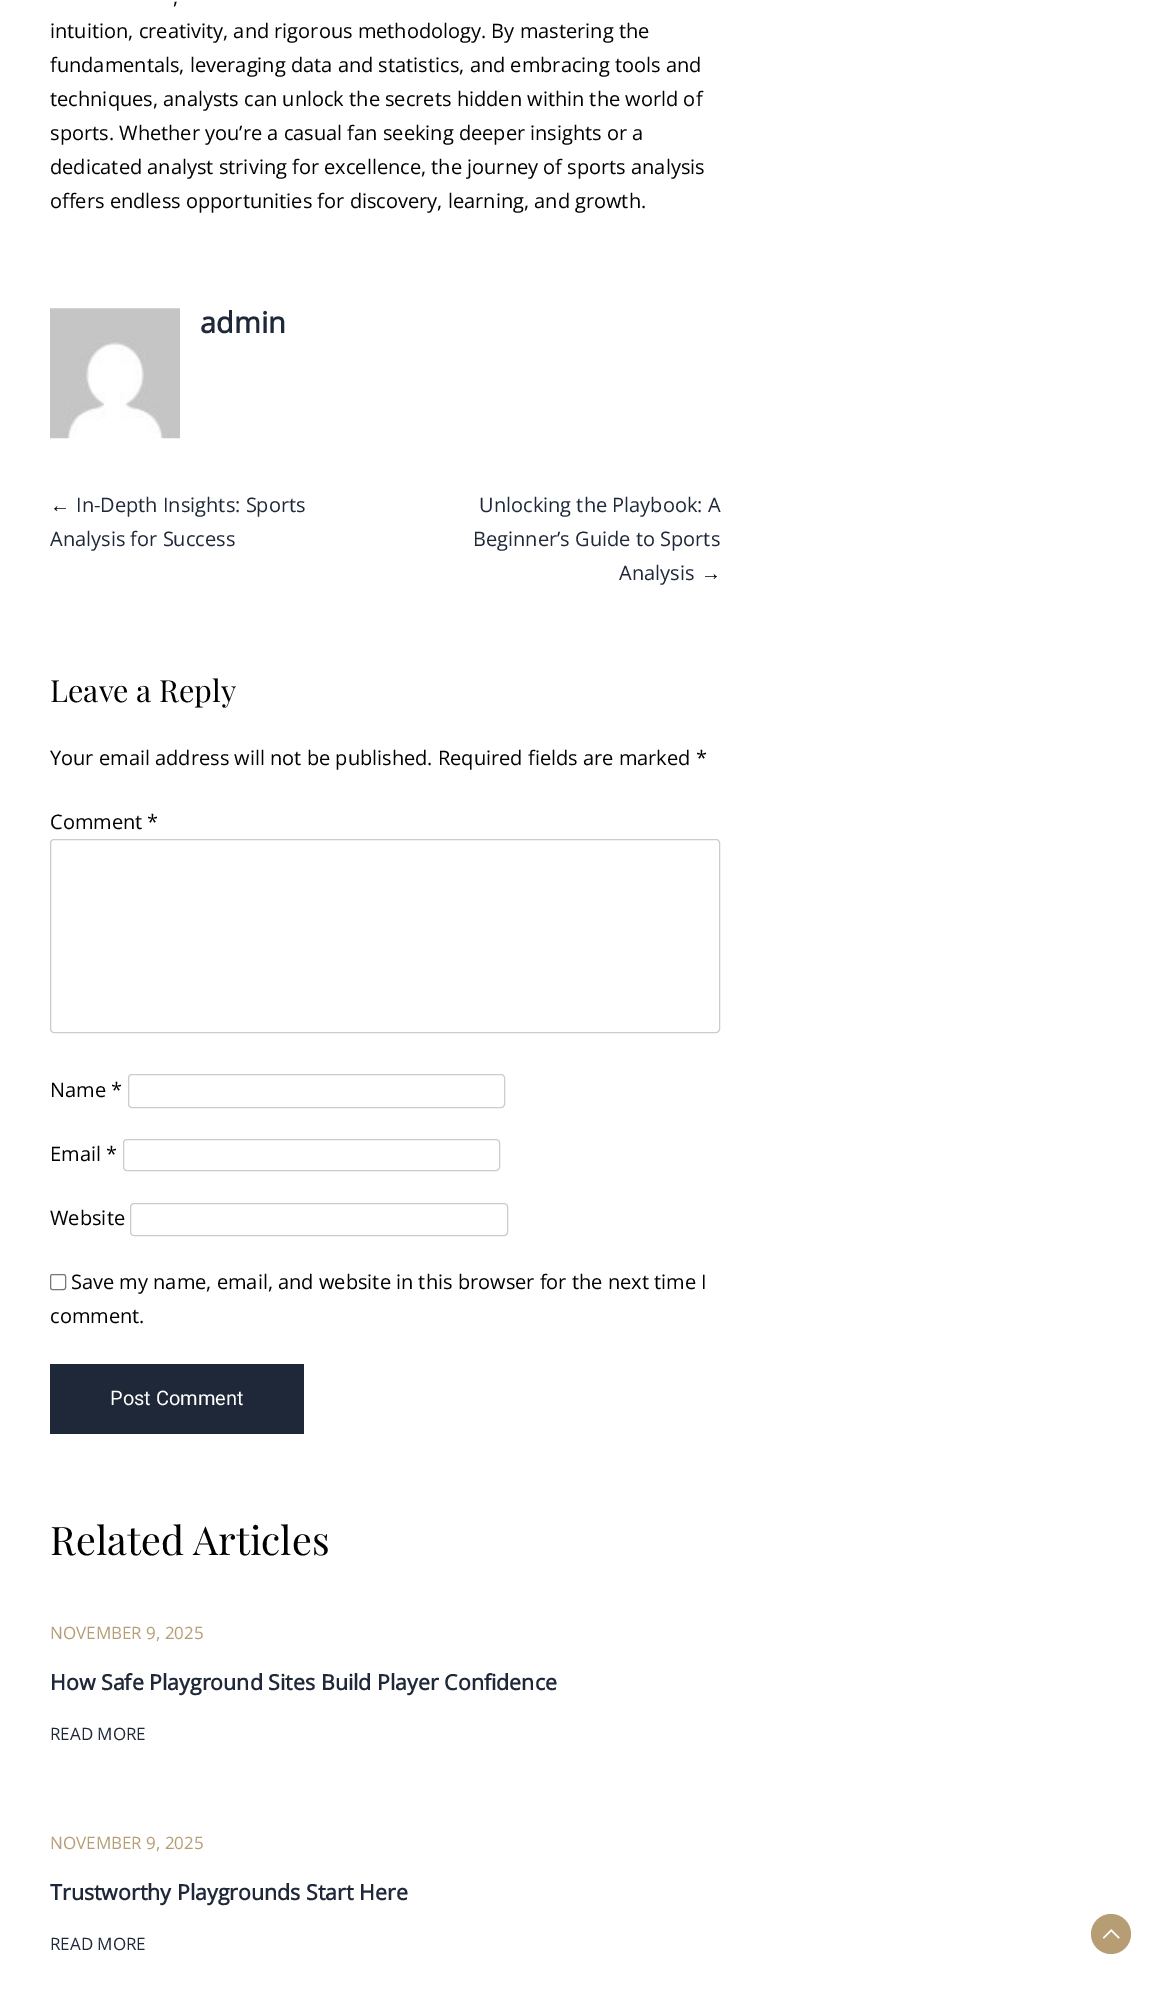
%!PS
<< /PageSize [1151 1993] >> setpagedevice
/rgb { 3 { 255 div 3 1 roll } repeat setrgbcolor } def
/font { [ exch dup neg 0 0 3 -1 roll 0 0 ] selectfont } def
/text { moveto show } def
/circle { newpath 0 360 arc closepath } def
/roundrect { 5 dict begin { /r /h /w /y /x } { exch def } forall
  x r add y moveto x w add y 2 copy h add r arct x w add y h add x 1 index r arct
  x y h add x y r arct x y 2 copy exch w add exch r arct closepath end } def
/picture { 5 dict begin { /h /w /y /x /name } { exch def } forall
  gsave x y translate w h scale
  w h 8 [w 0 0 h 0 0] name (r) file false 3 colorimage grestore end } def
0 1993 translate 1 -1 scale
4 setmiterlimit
255 255 255 rgb
0 0 1151 1993 rectfill
(img_01.rgb) 50 308 130 131 picture
204 204 204 rgb
50.5 839.5 669 193 3.5 roundrect stroke
128.5 1074.5 376 33 3.5 roundrect stroke
123.5 1139.5 376 31 3.5 roundrect stroke
130.5 1203.5 377 32 3.5 roundrect stroke
118 118 118 rgb
50.5 1274.5 15 15 2 roundrect stroke
31 40 57 rgb
50 1364 254 70 rectfill
182 157 116 rgb
1111 1934 20 circle fill
(img_02.rgb) 1102 1929 18 10 picture
/OpenSans-Regular 20 font
0 0 0 rgb
(,) 173 4 text
(intuition, creativity, and rigorous methodology. By mastering the) 50 38 text
(fundamentals, leveraging data and statistics, and embracing tools and) 50 72 text
(techniques, analysts can unlock the secrets hidden within the world of) 50 106 text
(sports. Whether you’re a casual fan seeking deeper insights or a) 50 140 text
(dedicated analyst striving for excellence, the journey of sports analysis) 50 174 text
(offers endless opportunities for discovery, learning, and growth.) 50 208 text
/OpenSans-Bold 29 font
31 40 57 rgb
(admin) 200 333 text
/LiberationSerif-Regular 20 font
0 0 0 rgb
(←) 50 512 text
/OpenSans-Regular 20 font
31 40 57 rgb
(In-Depth Insights: Sports) 76 512 text
(Analysis for Success) 50 546 text
(Unlocking the Playbook: A) 479 512 text
(Beginner’s Guide to Sports) 473 546 text
(Analysis) 619 580 text
/LiberationSerif-Regular 20 font
0 0 0 rgb
(→) 701 580 text
/PlayfairDisplay-Regular 30.5 font
(Leave a Reply) 50 702 text
/OpenSans-Regular 20 font
(Your email address will not be published. Required fields are marked *) 50 765 text
(Comment *) 50 829 text
(Name *) 50 1097 text
(Email *) 50 1161 text
(Website) 50 1225 text
(Save my name, email, and website in this browser for the next time I) 71 1289 text
(comment.) 50 1323 text
/Roboto-Regular 20 font
255 255 255 rgb
(Post Comment) 110 1405 text
/PlayfairDisplay-Regular 39.5 font
0 0 0 rgb
(Related Articles) 50 1555 text
/OpenSans-Regular 17 font
182 157 116 rgb
(NOVEMBER 9, 2025) 50 1639 text
/OpenSans-Bold 21.4 font
31 40 57 rgb
(How Safe Playground Sites Build Player Confidence) 50 1690 text
/OpenSans-Regular 17 font
(READ MORE) 50 1740 text
182 157 116 rgb
(NOVEMBER 9, 2025) 50 1849 text
/OpenSans-Bold 21.4 font
31 40 57 rgb
(Trustworthy Playgrounds Start Here) 50 1900 text
/OpenSans-Regular 17 font
(READ MORE) 50 1950 text
showpage
